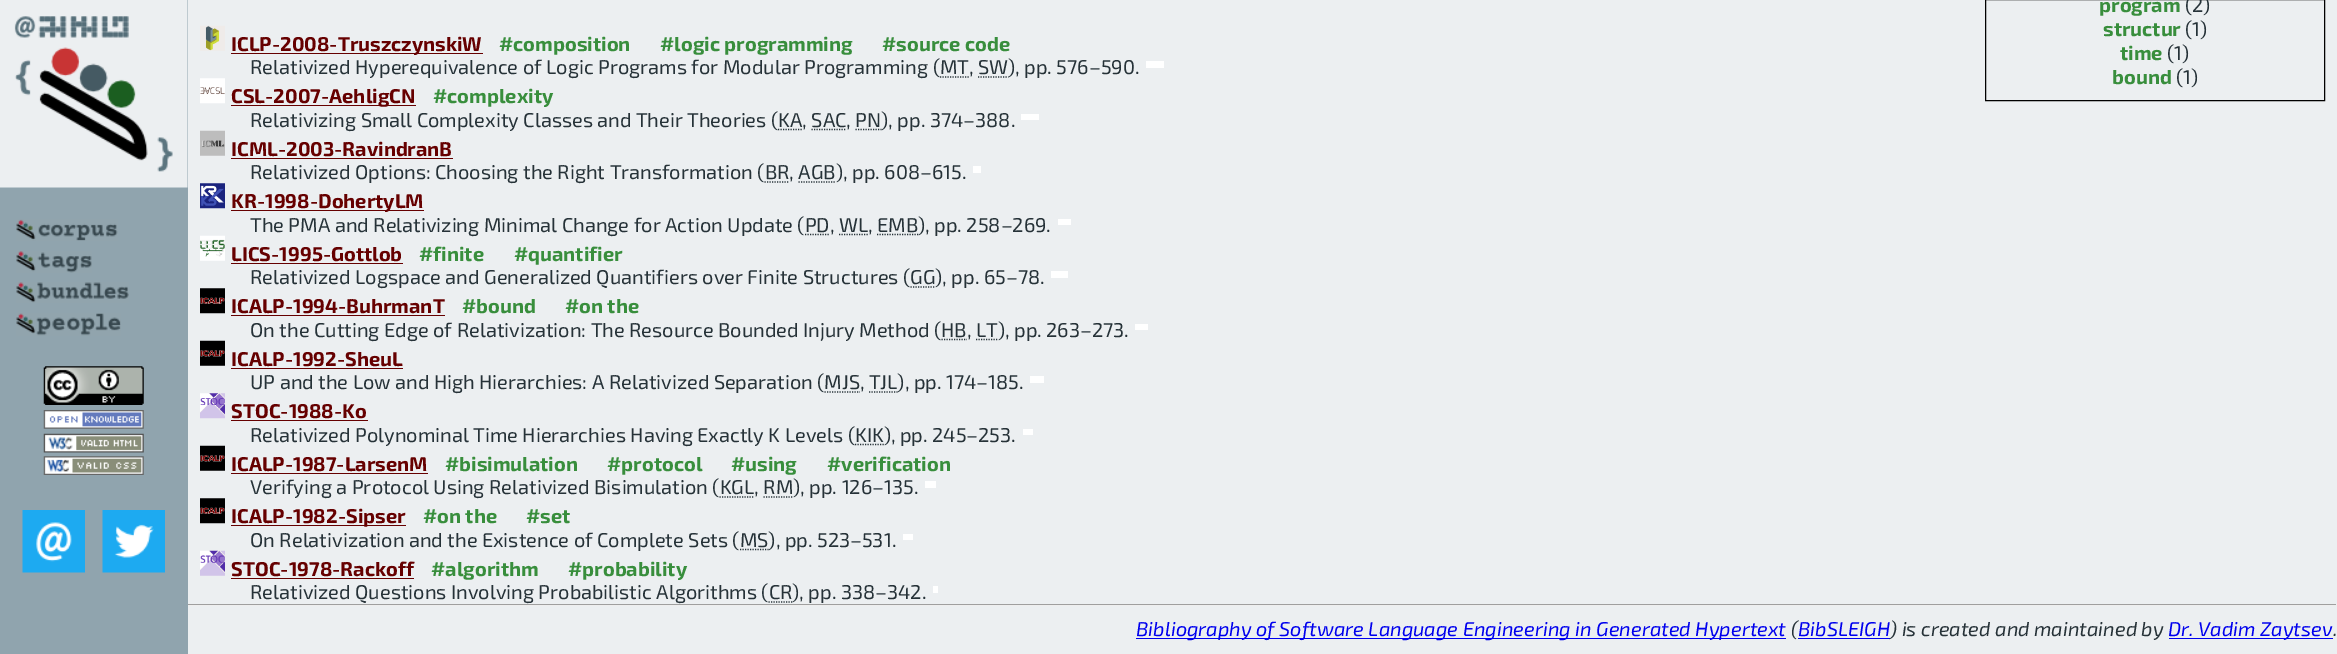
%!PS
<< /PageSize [2337 654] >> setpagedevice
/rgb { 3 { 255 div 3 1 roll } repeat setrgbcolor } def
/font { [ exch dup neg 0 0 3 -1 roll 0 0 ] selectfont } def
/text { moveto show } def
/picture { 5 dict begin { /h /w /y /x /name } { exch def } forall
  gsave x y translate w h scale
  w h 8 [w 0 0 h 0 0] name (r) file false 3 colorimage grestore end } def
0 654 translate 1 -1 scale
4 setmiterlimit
236 239 241 rgb
0 0 2337 654 rectfill
144 164 174 rgb
0 0 188 654 rectfill
(img_01.rgb) 0 0 188 188 picture
(img_02.rgb) 16 219 102 22 picture
(img_03.rgb) 16 251 76 22 picture
(img_04.rgb) 16 282 113 21 picture
(img_05.rgb) 16 313 105 23 picture
(img_06.rgb) 43 366 101 39 picture
(img_07.rgb) 43 410 101 19 picture
(img_08.rgb) 43 433 101 20 picture
(img_09.rgb) 43 456 101 19 picture
(img_10.rgb) 22 510 63 63 picture
(img_11.rgb) 102 510 63 63 picture
(img_12.rgb) 200 25 25 26 picture
102 0 0 rgb
231 53 252 1 rectfill
38 50 56 rgb
1.2 setlinewidth
[1.25 1.25] 0 setdash
940 77 moveto 29 0 rlineto stroke
978 77 moveto 30.5 0 rlineto stroke
255 255 255 rgb
1146 61 18 7 rectfill
(img_13.rgb) 200 78 25 26 picture
102 0 0 rgb
231 105 185 1 rectfill
38 50 56 rgb
778 129.5 moveto 24.5 0 rlineto stroke
811.5 129.5 moveto 35 0 rlineto stroke
855.5 129.5 moveto 26 0 rlineto stroke
255 255 255 rgb
1021 114 18 6 rectfill
(img_14.rgb) 200 130 25 26 picture
102 0 0 rgb
231 158 222 1 rectfill
38 50 56 rgb
764.5 182 moveto 25 0 rlineto stroke
798.5 182 moveto 37.5 0 rlineto stroke
255 255 255 rgb
973 166 8 7 rectfill
(img_15.rgb) 200 183 25 26 picture
102 0 0 rgb
231 210 193 1 rectfill
38 50 56 rgb
805 234.5 moveto 25 0 rlineto 839 234.5 moveto 29 0 rlineto stroke
877 234.5 moveto 41.5 0 rlineto stroke
255 255 255 rgb
1058 219 13 6 rectfill
(img_16.rgb) 200 235 25 26 picture
102 0 0 rgb
231 263 172 1 rectfill
38 50 56 rgb
910.5 287 moveto 25 0 rlineto stroke
255 255 255 rgb
1051 271 17 7 rectfill
(img_17.rgb) 200 288 25 26 picture
102 0 0 rgb
231 315 214 1 rectfill
38 50 56 rgb
941.5 339.5 moveto 25.5 0 rlineto 976 339.5 moveto 22 0 rlineto stroke
255 255 255 rgb
1135 324 13 6 rectfill
(img_18.rgb) 200 340 25 26 picture
102 0 0 rgb
231 368 172 1 rectfill
38 50 56 rgb
824.5 392 moveto 35.5 0 rlineto stroke
869 392 moveto 28.5 0 rlineto stroke
255 255 255 rgb
1030 376 14 7 rectfill
(img_19.rgb) 200 393 25 26 picture
102 0 0 rgb
231 420 137 1 rectfill
38 50 56 rgb
855 444.5 moveto 29 0 rlineto stroke
255 255 255 rgb
1023 429 10 6 rectfill
(img_18.rgb) 200 445 25 26 picture
102 0 0 rgb
231 473 197 1 rectfill
38 50 56 rgb
719.5 497 moveto 35 0 rlineto stroke
763.5 497 moveto 29.5 0 rlineto stroke
255 255 255 rgb
925 481 11 7 rectfill
(img_17.rgb) 200 498 25 26 picture
102 0 0 rgb
231 525 175 1 rectfill
38 50 56 rgb
740 549.5 moveto 28.5 0 rlineto stroke
255 255 255 rgb
903 534 10 6 rectfill
(img_20.rgb) 200 550 25 26 picture
102 0 0 rgb
231 578 183 1 rectfill
38 50 56 rgb
768.5 602 moveto 24 0 rlineto stroke
255 255 255 rgb
933 586 5 7 rectfill
0 0 0 rgb
1 setlinewidth
[] 0 setdash
1985.5 -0.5 339 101 rectstroke
159 159 159 rgb
188 604 2149 1 rectfill
238 238 238 rgb
2336 604 1 3 rectfill
188 605 2149 1 rectfill
0 0 238 rgb
1136 638 650 1 rectfill
2169 638 164 1 rectfill
/Exo2-Bold 20 font
102 0 0 rgb
(ICLP-2008-TruszczynskiW) 231 51 text
56 142 60 rgb
(#composition) 499 51 text
(#logic programming) 660 51 text
(#source code) 882 51 text
/Exo2-Regular 20 font
38 50 56 rgb
(Relativized Hyperequivalence of Logic Programs for Modular Programming \(MT, SW) 250 74 text
(\), pp. 576–590.) 1008 74 text
/Exo2-Bold 20 font
102 0 0 rgb
(CSL-2007-AehligCN) 231 103 text
56 142 60 rgb
(#complexity) 433 103 text
/Exo2-Regular 20 font
38 50 56 rgb
(Relativizing Small Complexity Classes and Their Theories \(KA, SAC, PN\), pp. 374–388.) 250 127 text
/Exo2-Bold 20 font
102 0 0 rgb
(ICML-2003-RavindranB) 231 156 text
/Exo2-Regular 20 font
38 50 56 rgb
(Relativized Options: Choosing the Right Transformation \(BR, AGB\), pp. 608–615.) 250 179 text
/Exo2-Bold 20 font
102 0 0 rgb
(KR-1998-DohertyLM) 231 208 text
/Exo2-Regular 20 font
38 50 56 rgb
(The PMA and Relativizing Minimal Change for Action Update \(PD, WL, EMB) 250 232 text
(\), pp. 258–269.) 918 232 text
/Exo2-Bold 20 font
102 0 0 rgb
(LICS-1995-Gottlob) 231 261 text
56 142 60 rgb
(#finite) 419 261 text
(#quantifier) 514 261 text
/Exo2-Regular 20 font
38 50 56 rgb
(Relativized Logspace and Generalized Quantifiers over Finite Structures \(GG\), pp. 65–78.) 250 284 text
/Exo2-Bold 20 font
102 0 0 rgb
(ICALP-1994-BuhrmanT) 231 313 text
56 142 60 rgb
(#bound) 462 313 text
(#on the) 565 313 text
/Exo2-Regular 20 font
38 50 56 rgb
(On the Cutting Edge of Relativization: The Resource Bounded Injury Method \(HB, LT\), pp. 263–273.) 250 337 text
/Exo2-Bold 20 font
102 0 0 rgb
(ICALP-1992-SheuL) 231 366 text
/Exo2-Regular 20 font
38 50 56 rgb
(UP and the Low and High Hierarchies: A Relativized Separation \(MJS, TJL\), pp. 174–185.) 250 389 text
/Exo2-Bold 20 font
102 0 0 rgb
(STOC-1988-Ko) 231 418 text
/Exo2-Regular 20 font
38 50 56 rgb
(Relativized Polynominal Time Hierarchies Having Exactly K Levels \(KIK\), pp. 245–253.) 250 442 text
/Exo2-Bold 20 font
102 0 0 rgb
(ICALP-1987-LarsenM) 231 471 text
56 142 60 rgb
(#bisimulation) 445 471 text
(#protocol) 607 471 text
(#using) 731 471 text
(#verification) 827 471 text
/Exo2-Regular 20 font
38 50 56 rgb
(Verifying a Protocol Using Relativized Bisimulation \(KGL, RM\), pp. 126–135.) 250 494 text
/Exo2-Bold 20 font
102 0 0 rgb
(ICALP-1982-Sipser) 231 523 text
56 142 60 rgb
(#on the) 423 523 text
(#set) 526 523 text
/Exo2-Regular 20 font
38 50 56 rgb
(On Relativization and the Existence of Complete Sets \(MS\), pp. 523–531.) 250 547 text
/Exo2-Bold 20 font
102 0 0 rgb
(STOC-1978-Rackoff) 231 576 text
56 142 60 rgb
(#algorithm) 431 576 text
(#probability) 568 576 text
/Exo2-Regular 20 font
38 50 56 rgb
(Relativized Questions Involving Probabilistic Algorithms \(CR\), pp. 338–342.) 250 599 text
/Exo2-Bold 20 font
56 142 60 rgb
(program) 2099 12 text
/Exo2-Regular 20 font
38 50 56 rgb
(\(2\)) 2185 12 text
/Exo2-Bold 20 font
56 142 60 rgb
(structur) 2103 36 text
/Exo2-Regular 20 font
38 50 56 rgb
(\(1\)) 2185 36 text
/Exo2-Bold 20 font
56 142 60 rgb
(time) 2120 60 text
/Exo2-Regular 20 font
38 50 56 rgb
(\(1\)) 2167 60 text
/Exo2-Bold 20 font
56 142 60 rgb
(bound) 2112 84 text
/Exo2-Regular 20 font
38 50 56 rgb
(\(1\)) 2176 84 text
/Exo2-Italic 20 font
0 0 238 rgb
(Bibliography of Software Language Engineering in Generated Hypertext) 1136 636 text
38 50 56 rgb
(\() 1791 636 text
0 0 238 rgb
(BibSLEIGH) 1798 636 text
1798 638 92 1 rectfill
38 50 56 rgb
(\) is created and maintained by) 1890 636 text
0 0 238 rgb
(Dr. Vadim Zaytsev) 2168 636 text
38 50 56 rgb
(.) 2333 636 text
showpage
